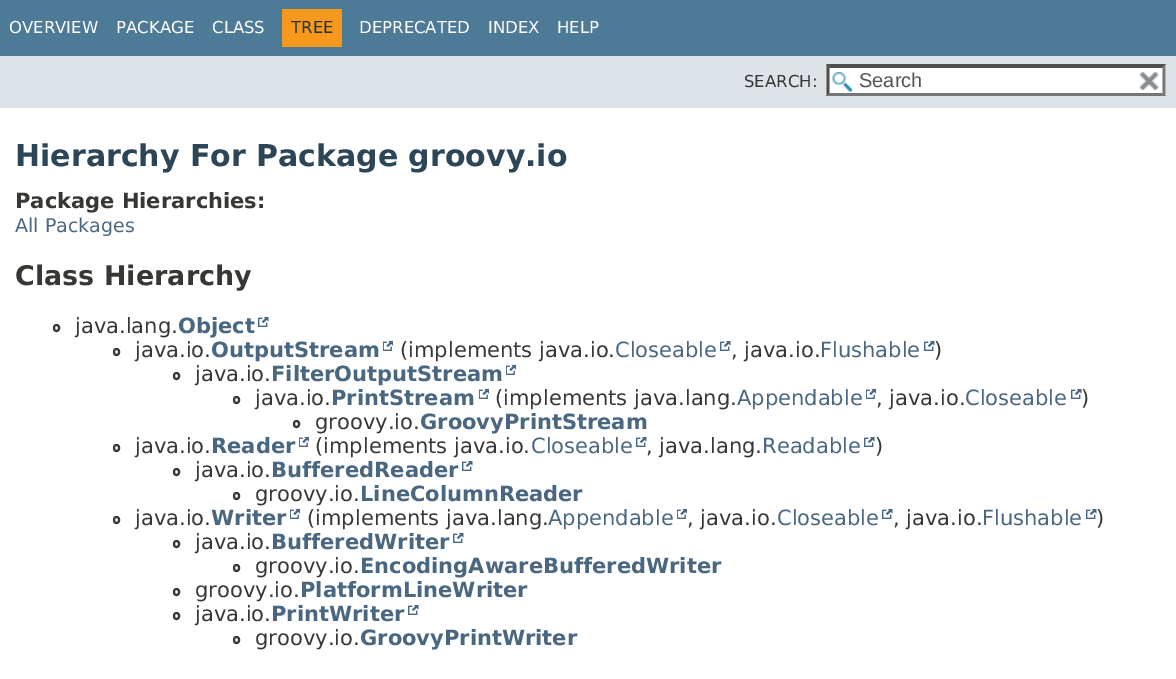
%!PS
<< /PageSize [1176 679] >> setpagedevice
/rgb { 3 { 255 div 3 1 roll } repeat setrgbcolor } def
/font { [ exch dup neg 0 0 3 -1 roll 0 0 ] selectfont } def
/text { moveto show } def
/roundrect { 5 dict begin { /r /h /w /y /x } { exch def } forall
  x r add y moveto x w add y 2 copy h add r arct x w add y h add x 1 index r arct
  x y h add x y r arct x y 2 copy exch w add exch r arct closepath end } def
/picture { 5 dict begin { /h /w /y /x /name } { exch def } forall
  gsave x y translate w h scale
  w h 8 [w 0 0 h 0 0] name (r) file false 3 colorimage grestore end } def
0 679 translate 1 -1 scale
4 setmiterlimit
255 255 255 rgb
0 0 1176 679 rectfill
77 122 151 rgb
0 0 1176 56 rectfill
248 152 29 rgb
282 9 60 38 rectfill
222 227 233 rgb
0 56 1176 52 rectfill
255 255 255 rgb
827 65 339 31 rectfill
(img_01.rgb) 832 72 20 20 picture
79 79 79 rgb
826 64 moveto 340 0 rlineto -4 4 rlineto -332 0 rlineto closepath fill
118 118 118 rgb
1165.5 64.5 moveto 0 31.5 rlineto -3 -3 rlineto 0 -25.5 rlineto closepath fill
1166 96 moveto -340 0 rlineto 4 -3 rlineto 332 0 rlineto closepath fill
79 79 79 rgb
826.5 96 moveto 0 -31.5 rlineto 3 3 rlineto 0 25.5 rlineto closepath fill
(img_02.rgb) 1139 72 20 19 picture
53 56 51 rgb
2 setlinewidth
54 325 5 6 2.5 roundrect stroke
(img_03.rgb) 258 317 11 10 picture
114 349 5 6 2.5 roundrect stroke
(img_04.rgb) 383 341 10 10 picture
(img_03.rgb) 720 341 11 10 picture
(img_03.rgb) 924 341 11 10 picture
174 373 5 6 2.5 roundrect stroke
(img_04.rgb) 506 365 10 10 picture
234 397 5 6 2.5 roundrect stroke
(img_04.rgb) 479 389 10 10 picture
(img_04.rgb) 866 389 10 10 picture
(img_03.rgb) 1071 389 11 10 picture
294 421 5 6 2.5 roundrect stroke
114 445 5 6 2.5 roundrect stroke
(img_04.rgb) 299 437 10 10 picture
(img_03.rgb) 636 437 11 10 picture
(img_03.rgb) 864 437 11 10 picture
174 469 5 6 2.5 roundrect stroke
(img_03.rgb) 462 461 11 10 picture
234 493 5 6 2.5 roundrect stroke
114 517 5 6 2.5 roundrect stroke
(img_04.rgb) 290 509 10 10 picture
(img_04.rgb) 677 509 10 10 picture
(img_03.rgb) 882 509 11 10 picture
(img_03.rgb) 1086 509 11 10 picture
174 541 5 6 2.5 roundrect stroke
(img_03.rgb) 453 533 11 10 picture
234 565 5 6 2.5 roundrect stroke
174 589 5 6 2.5 roundrect stroke
174 613 5 6 2.5 roundrect stroke
(img_03.rgb) 408 605 11 10 picture
234 637 5 6 2.5 roundrect stroke
/DejaVuSans-Regular 16.5 font
255 255 255 rgb
(OVERVIEW) 9 33 text
(PACKAGE) 116 33 text
(CLASS) 212 33 text
37 52 65 rgb
(TREE) 291 33 text
255 255 255 rgb
(DEPRECATED) 359 33 text
(INDEX) 488 33 text
(HELP) 557 33 text
53 56 51 rgb
(SEARCH:) 744 87 text
/LiberationSans-Regular 20 font
84 84 84 rgb
(Search) 859 87 text
/DejaVuSans-Bold 30 font
44 69 87 rgb
(Hierarchy For Package groovy.io) 15 166 text
/DejaVuSans-Bold 21 font
53 56 51 rgb
(Package Hierarchies:) 15 208 text
/DejaVuSans-Regular 19 font
74 103 130 rgb
(All Packages) 15 232 text
/DejaVuSans-Bold 27 font
53 56 51 rgb
(Class Hierarchy) 15 285 text
/DejaVuSans-Regular 21 font
(java.lang.) 75 333 text
/DejaVuSans-Bold 21 font
74 103 130 rgb
(Object) 178 333 text
/DejaVuSans-Regular 21 font
53 56 51 rgb
(java.io.) 135 357 text
/DejaVuSans-Bold 21 font
74 103 130 rgb
(OutputStream) 211 357 text
/DejaVuSans-Regular 21 font
53 56 51 rgb
(\(implements java.io.) 400 357 text
74 103 130 rgb
(Closeable) 615 357 text
53 56 51 rgb
(, java.io.) 731 357 text
74 103 130 rgb
(Flushable) 820 357 text
53 56 51 rgb
(\)) 934 357 text
(java.io.) 195 381 text
/DejaVuSans-Bold 21 font
74 103 130 rgb
(FilterOutputStream) 271 381 text
/DejaVuSans-Regular 21 font
53 56 51 rgb
(java.io.) 255 405 text
/DejaVuSans-Bold 21 font
74 103 130 rgb
(PrintStream) 331 405 text
/DejaVuSans-Regular 21 font
53 56 51 rgb
(\(implements java.lang.) 495 405 text
74 103 130 rgb
(Appendable) 737 405 text
53 56 51 rgb
(, java.io.) 876 405 text
74 103 130 rgb
(Closeable) 965 405 text
53 56 51 rgb
(\)) 1081 405 text
(groovy.io.) 315 429 text
/DejaVuSans-Bold 21 font
74 103 130 rgb
(GroovyPrintStream) 420 429 text
/DejaVuSans-Regular 21 font
53 56 51 rgb
(java.io.) 135 453 text
/DejaVuSans-Bold 21 font
74 103 130 rgb
(Reader) 211 453 text
/DejaVuSans-Regular 21 font
53 56 51 rgb
(\(implements java.io.) 315 453 text
74 103 130 rgb
(Closeable) 531 453 text
53 56 51 rgb
(, java.lang.) 646 453 text
74 103 130 rgb
(Readable) 762 453 text
53 56 51 rgb
(\)) 875 453 text
(java.io.) 195 477 text
/DejaVuSans-Bold 21 font
74 103 130 rgb
(BufferedReader) 271 477 text
/DejaVuSans-Regular 21 font
53 56 51 rgb
(groovy.io.) 255 501 text
/DejaVuSans-Bold 21 font
74 103 130 rgb
(LineColumnReader) 360 501 text
/DejaVuSans-Regular 21 font
53 56 51 rgb
(java.io.) 135 525 text
/DejaVuSans-Bold 21 font
74 103 130 rgb
(Writer) 211 525 text
/DejaVuSans-Regular 21 font
53 56 51 rgb
(\(implements java.lang.) 307 525 text
74 103 130 rgb
(Appendable) 548 525 text
53 56 51 rgb
(, java.io.) 687 525 text
74 103 130 rgb
(Closeable) 777 525 text
53 56 51 rgb
(, java.io.) 893 525 text
74 103 130 rgb
(Flushable) 982 525 text
53 56 51 rgb
(\)) 1096 525 text
(java.io.) 195 549 text
/DejaVuSans-Bold 21 font
74 103 130 rgb
(BufferedWriter) 271 549 text
/DejaVuSans-Regular 21 font
53 56 51 rgb
(groovy.io.) 255 573 text
/DejaVuSans-Bold 21 font
74 103 130 rgb
(EncodingAwareBufferedWriter) 360 573 text
/DejaVuSans-Regular 21 font
53 56 51 rgb
(groovy.io.) 195 597 text
/DejaVuSans-Bold 21 font
74 103 130 rgb
(PlatformLineWriter) 300 597 text
/DejaVuSans-Regular 21 font
53 56 51 rgb
(java.io.) 195 621 text
/DejaVuSans-Bold 21 font
74 103 130 rgb
(PrintWriter) 271 621 text
/DejaVuSans-Regular 21 font
53 56 51 rgb
(groovy.io.) 255 645 text
/DejaVuSans-Bold 21 font
74 103 130 rgb
(GroovyPrintWriter) 360 645 text
showpage
